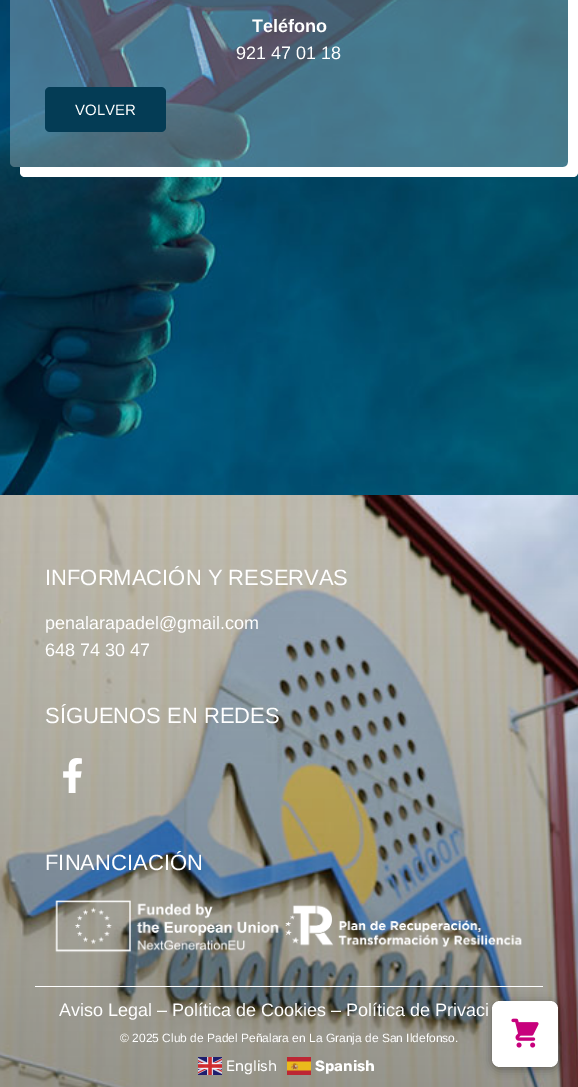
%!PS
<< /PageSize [578 1087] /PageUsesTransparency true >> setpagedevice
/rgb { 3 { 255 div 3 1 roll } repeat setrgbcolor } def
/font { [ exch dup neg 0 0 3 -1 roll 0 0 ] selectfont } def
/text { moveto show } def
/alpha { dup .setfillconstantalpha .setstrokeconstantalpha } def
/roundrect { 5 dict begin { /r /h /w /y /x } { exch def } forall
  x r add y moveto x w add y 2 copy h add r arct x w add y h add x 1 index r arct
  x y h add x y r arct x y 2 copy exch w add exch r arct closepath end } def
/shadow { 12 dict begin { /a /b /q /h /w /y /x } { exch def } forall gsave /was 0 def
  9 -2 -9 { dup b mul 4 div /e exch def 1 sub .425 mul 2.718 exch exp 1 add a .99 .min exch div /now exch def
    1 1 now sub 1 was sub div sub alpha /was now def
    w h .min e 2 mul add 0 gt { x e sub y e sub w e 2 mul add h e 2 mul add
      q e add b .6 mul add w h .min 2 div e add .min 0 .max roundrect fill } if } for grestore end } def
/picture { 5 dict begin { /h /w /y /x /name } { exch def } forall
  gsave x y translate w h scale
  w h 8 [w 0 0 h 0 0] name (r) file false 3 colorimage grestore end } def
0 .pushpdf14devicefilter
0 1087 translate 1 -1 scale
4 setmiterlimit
255 255 255 rgb
0 0 578 1087 rectfill
(img_01.rgb) 0 0 578 495 picture
20 167 moveto 0 5 rlineto 0 3 2 5 5 5 rcurveto 548 0 rlineto 3 0 5 -2 5 -5 rcurveto 0 -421 rlineto 0 -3 -2 -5 -5 -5 rcurveto -5 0 rlineto 0 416 rlineto 0 3 -2 5 -5 5 rcurveto closepath fill
0.27 alpha
10 -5 558 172 5 roundrect fill
1 alpha
4 60 85 rgb
45 87 121 45 5 roundrect fill
(img_02.rgb) 0 495 578 592 picture
(img_03.rgb) 63 758 19 35 picture
(img_04.rgb) 55 900 467 53 picture
255 255 255 rgb
35 986 508 1 rectfill
(img_05.rgb) 198 1057 24 18 picture
(img_06.rgb) 287 1057 24 18 picture
0 0 0 rgb
492 1003 66 66 8 5 0.37 shadow
255 255 255 rgb
492 1001 66 66 8 roundrect fill
(img_07.rgb) 511 1018 28 30 picture
/LiberationSans-Bold 18 font
(Teléfono) 252 32 text
/LiberationSans-Regular 18 font
(921 47 01 18) 236 59 text
/LiberationSans-Regular 15 font
(VOLVER) 75 115 text
/LiberationSans-Regular 22 font
(INFORMACIÓN Y RESERVAS) 45 585 text
/LiberationSans-Regular 18 font
(penalarapadel@gmail.com) 45 629 text
(648 74 30 47) 45 656 text
/LiberationSans-Regular 22 font
(SÍGUENOS EN REDES) 45 723 text
(FINANCIACIÓN) 45 870 text
/LiberationSans-Regular 18 font
(Aviso Legal – Política de Cookies – Política de Privaci) 59 1016 text
/LiberationSans-Regular 12 font
(© 2025 Club de Padel Peñalara en La Granja de San Ildefonso.) 120 1042 text
/Rubik-Regular 15 font
(English) 226 1071 text
/Rubik-Bold 15 font
(Spanish) 315 1071 text
.poppdf14devicefilter showpage
